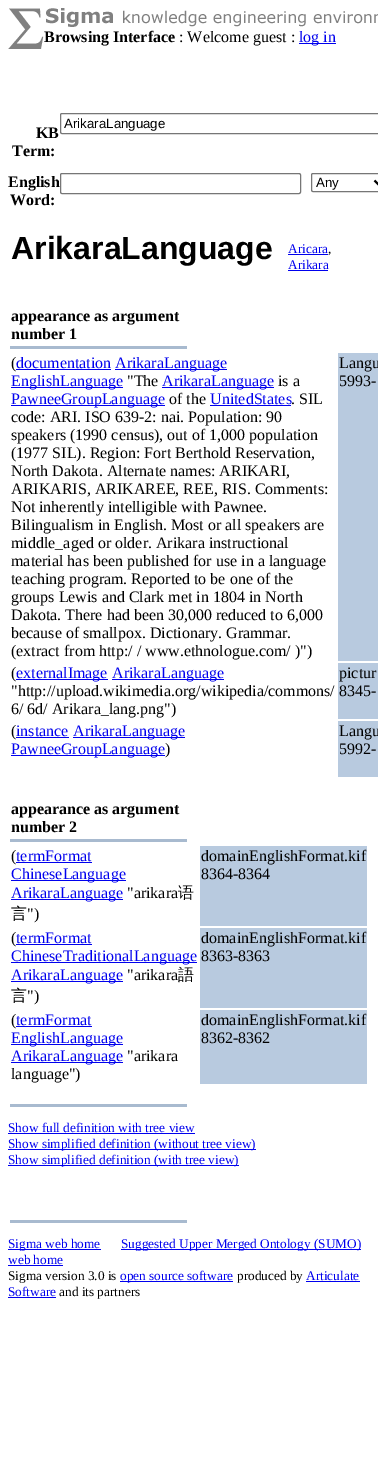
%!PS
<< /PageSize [378 1460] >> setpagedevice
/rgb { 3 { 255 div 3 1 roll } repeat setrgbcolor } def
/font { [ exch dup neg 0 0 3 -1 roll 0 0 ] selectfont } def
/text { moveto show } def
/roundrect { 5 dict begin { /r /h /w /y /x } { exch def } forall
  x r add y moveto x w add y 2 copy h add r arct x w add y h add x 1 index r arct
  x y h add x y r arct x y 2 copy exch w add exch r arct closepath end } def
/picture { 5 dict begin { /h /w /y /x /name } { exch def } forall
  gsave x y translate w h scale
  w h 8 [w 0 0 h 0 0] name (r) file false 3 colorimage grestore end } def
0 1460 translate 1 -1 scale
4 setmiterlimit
255 255 255 rgb
0 0 378 1460 rectfill
(img_01.rgb) 8 8 36 41 picture
(img_02.rgb) 46 8 332 19 picture
0 0 238 rgb
299 43 37 1 rectfill
118 118 118 rgb
60.5 113.5 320 20 1.5 roundrect stroke
60.5 173.5 240 20 1.5 roundrect stroke
311.5 173.5 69 18 1.5 roundrect stroke
0 0 0 rgb
2 setlinewidth
374.5 180.5 moveto 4 4 rlineto 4 -4 rlineto stroke
0 0 238 rgb
288 254 40 1 rectfill
288 270 40 1 rectfill
168 186 207 rgb
10 346 177 3 rectfill
0 0 238 rgb
16 369 95 1 rectfill
115 369 112 1 rectfill
11 387 112 1 rectfill
162 387 112 1 rectfill
11 405 154 1 rectfill
210 405 81 1 rectfill
184 202 223 rgb
338 353 40 308 rectfill
0 0 238 rgb
16 679 92 1 rectfill
112 679 112 1 rectfill
184 202 223 rgb
338 663 40 56 rectfill
0 0 238 rgb
16 737 53 1 rectfill
73 737 112 1 rectfill
11 755 154 1 rectfill
184 202 223 rgb
338 721 40 56 rectfill
168 186 207 rgb
10 839 177 3 rectfill
0 0 238 rgb
16 862 76 1 rectfill
11 880 115 1 rectfill
11 899 112 1 rectfill
184 202 223 rgb
200 846 167 80 rectfill
0 0 238 rgb
16 944 76 1 rectfill
11 962 186 1 rectfill
11 981 112 1 rectfill
184 202 223 rgb
200 928 167 80 rectfill
0 0 238 rgb
16 1026 76 1 rectfill
11 1044 112 1 rectfill
11 1062 112 1 rectfill
184 202 223 rgb
200 1010 167 74 rectfill
168 186 207 rgb
10 1104 177 3 rectfill
0 0 238 rgb
8 1133 187 1 rectfill
8 1149 248 1 rectfill
8 1165 231 1 rectfill
168 186 207 rgb
10 1220 177 3 rectfill
0 0 238 rgb
8 1249 93 1 rectfill
121 1249 240 1 rectfill
8 1265 55 1 rectfill
120 1281 113 1 rectfill
306 1281 54 1 rectfill
8 1297 48 1 rectfill
/LiberationSerif-Bold 16 font
0 0 0 rgb
(Browsing Interface) 44 42 text
/LiberationSerif-Regular 16 font
(: Welcome guest :) 179 42 text
0 0 238 rgb
(log in) 299 42 text
/LiberationSans-Regular 13.3 font
0 0 0 rgb
(ArikaraLanguage) 64 128 text
/LiberationSerif-Bold 16 font
(KB) 36 138 text
(Term:) 12 156 text
(English) 8 187 text
(Word:) 10 205 text
/LiberationSans-Regular 13.3 font
(Any) 316 187 text
/LiberationSans-Bold 32 font
(ArikaraLanguage) 11 259 text
/LiberationSerif-Regular 13.3 font
0 0 238 rgb
(Aricara) 288 253 text
0 0 0 rgb
(,) 328 253 text
0 0 238 rgb
(Arikara) 288 269 text
/LiberationSerif-Bold 16 font
0 0 0 rgb
(appearance as argument) 11 321 text
(number 1) 11 339 text
/LiberationSerif-Regular 16 font
(\() 11 368 text
0 0 238 rgb
(documentation) 16 368 text
(ArikaraLanguage) 115 368 text
(EnglishLanguage) 11 386 text
0 0 0 rgb
("The) 127 386 text
0 0 238 rgb
(ArikaraLanguage) 162 386 text
0 0 0 rgb
(is a) 278 386 text
0 0 238 rgb
(PawneeGroupLanguage) 11 404 text
0 0 0 rgb
(of the) 169 404 text
0 0 238 rgb
(UnitedStates) 210 404 text
0 0 0 rgb
(. SIL) 291 404 text
(code: ARI. ISO 639-2: nai. Population: 90) 11 422 text
(speakers \(1990 census\), out of 1,000 population) 11 440 text
(\(1977 SIL\). Region: Fort Berthold Reservation,) 11 458 text
(North Dakota. Alternate names: ARIKARI,) 11 476 text
(ARIKARIS, ARIKAREE, REE, RIS. Comments:) 11 494 text
(Not inherently intelligible with Pawnee.) 11 512 text
(Bilingualism in English. Most or all speakers are) 11 530 text
(middle_aged or older. Arikara instructional) 11 548 text
(material has been published for use in a language) 11 566 text
(teaching program. Reported to be one of the) 11 584 text
(groups Lewis and Clark met in 1804 in North) 11 602 text
(Dakota. There had been 30,000 reduced to 6,000) 11 620 text
(because of smallpox. Dictionary. Grammar.) 11 638 text
(\(extract from http:/ / www.ethnologue.com/ \)"\)) 11 656 text
(Langu) 339 368 text
(5993-) 339 386 text
(\() 11 678 text
0 0 238 rgb
(externalImage) 16 678 text
(ArikaraLanguage) 112 678 text
0 0 0 rgb
("http://upload.wikimedia.org/wikipedia/commons/ 8345-) 11 696 text
(6/ 6d/ Arikara_lang.png"\)) 11 714 text
(pictur) 339 678 text
(\() 11 736 text
0 0 238 rgb
(instance) 16 736 text
(ArikaraLanguage) 73 736 text
(PawneeGroupLanguage) 11 754 text
0 0 0 rgb
(\)) 165 754 text
(Langu) 339 736 text
(5992-) 339 754 text
/LiberationSerif-Bold 16 font
(appearance as argument) 11 814 text
(number 2) 11 832 text
/LiberationSerif-Regular 16 font
(\() 11 861 text
0 0 238 rgb
(termFormat) 16 861 text
(ChineseLanguage) 11 879 text
(ArikaraLanguage) 11 898 text
0 0 0 rgb
("arikara) 127 898 text
/WenQuanYiZenHei-Medium 16 font
(语) 178 898 text
(言) 11 919 text
/LiberationSerif-Regular 16 font
("\)) 27 919 text
(domainEnglishFormat.kif) 201 861 text
(8364-8364) 201 879 text
(\() 11 943 text
0 0 238 rgb
(termFormat) 16 943 text
(ChineseTraditionalLanguage) 11 961 text
(ArikaraLanguage) 11 980 text
0 0 0 rgb
("arikara) 127 980 text
/WenQuanYiZenHei-Medium 16 font
(語) 178 980 text
(言) 11 1001 text
/LiberationSerif-Regular 16 font
("\)) 27 1001 text
(domainEnglishFormat.kif) 201 943 text
(8363-8363) 201 961 text
(\() 11 1025 text
0 0 238 rgb
(termFormat) 16 1025 text
(EnglishLanguage) 11 1043 text
(ArikaraLanguage) 11 1061 text
0 0 0 rgb
("arikara) 127 1061 text
(language"\)) 11 1079 text
(domainEnglishFormat.kif) 201 1025 text
(8362-8362) 201 1043 text
/LiberationSerif-Regular 13.3 font
0 0 238 rgb
(Show full definition with tree view) 8 1132 text
(Show simplified definition \(without tree view\)) 8 1148 text
(Show simplified definition \(with tree view\)) 8 1164 text
(Sigma web home) 8 1248 text
(Suggested Upper Merged Ontology \(SUMO\)) 121 1248 text
(web home) 8 1264 text
0 0 0 rgb
(Sigma version 3.0 is) 8 1280 text
0 0 238 rgb
(open source software) 120 1280 text
0 0 0 rgb
(produced by) 237 1280 text
0 0 238 rgb
(Articulate) 306 1280 text
(Software) 8 1296 text
0 0 0 rgb
(and its partners) 59 1296 text
showpage
